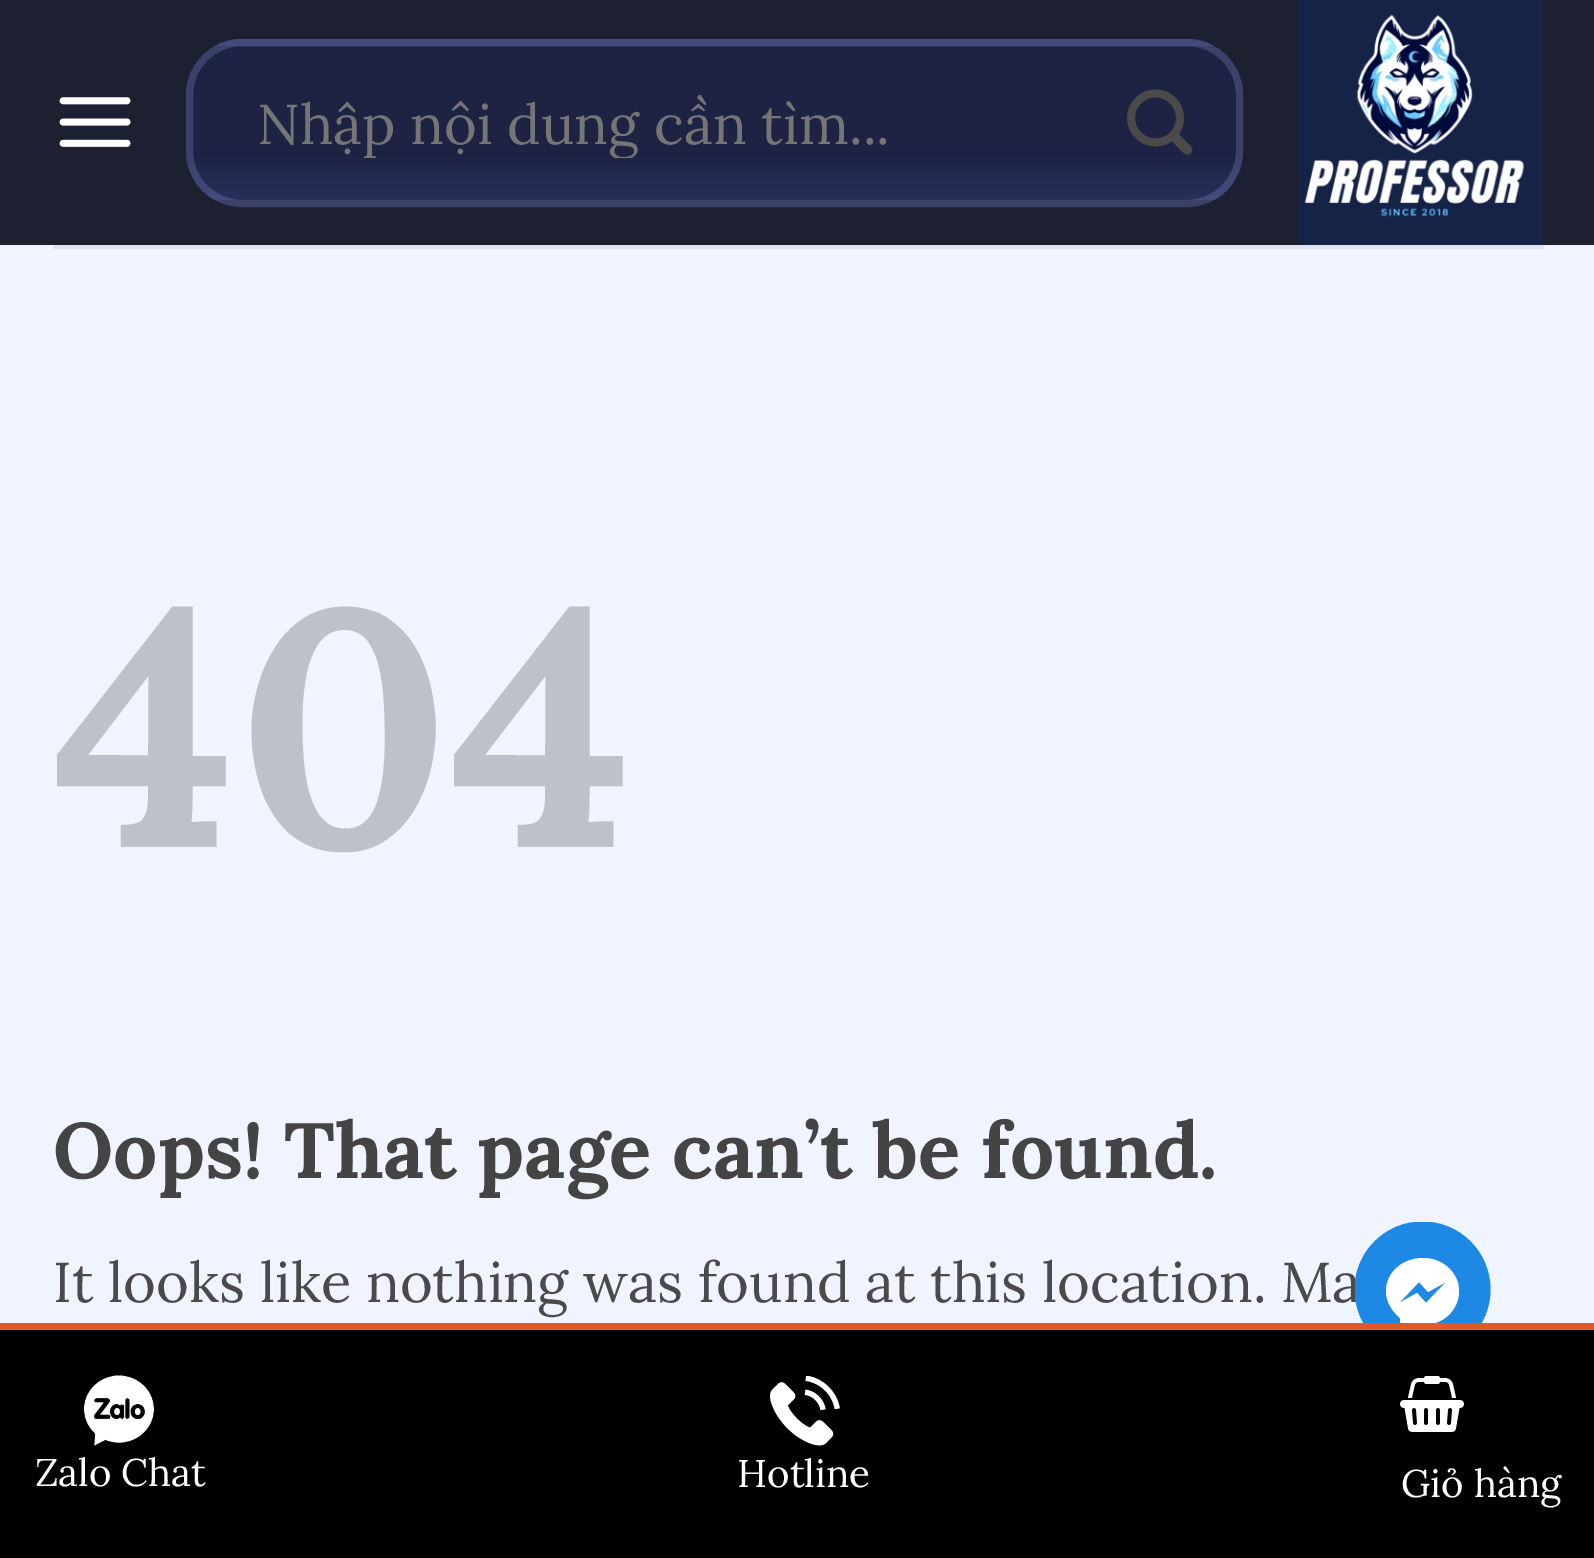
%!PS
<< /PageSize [1594 1558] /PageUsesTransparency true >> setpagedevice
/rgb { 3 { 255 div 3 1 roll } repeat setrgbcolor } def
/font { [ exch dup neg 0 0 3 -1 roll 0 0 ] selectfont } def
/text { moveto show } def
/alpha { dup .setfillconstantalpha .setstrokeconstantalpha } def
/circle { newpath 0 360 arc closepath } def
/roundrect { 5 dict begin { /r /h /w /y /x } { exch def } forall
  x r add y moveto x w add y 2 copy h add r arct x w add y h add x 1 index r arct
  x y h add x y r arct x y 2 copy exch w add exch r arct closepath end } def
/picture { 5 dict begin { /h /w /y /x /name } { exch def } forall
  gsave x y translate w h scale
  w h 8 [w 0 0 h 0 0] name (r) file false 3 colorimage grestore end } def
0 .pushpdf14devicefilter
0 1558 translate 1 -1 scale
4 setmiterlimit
240 244 255 rgb
0 0 1594 1558 rectfill
29 32 49 rgb
0 0 1594 245 rectfill
(img_01.rgb) 59 97 72 50 picture
gsave
186 39 1057 168 56 roundrect clip newpath
gsave 215 39 moveto 999 0 rlineto 0 7 rlineto -999 0 rlineto closepath clip newpath
<< /ShadingType 2 /ColorSpace /DeviceRGB /Coords [714 -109 714 46] /Extend [true true] /Function << /FunctionType 3 /Domain [0 1] /Functions [<< /FunctionType 2 /Domain [0 1] /C0 [0.118 0.137 0.267] /C1 [0.118 0.137 0.267] /N 1 >> << /FunctionType 2 /Domain [0 1] /C0 [0.118 0.137 0.267] /C1 [0.157 0.188 0.353] /N 1 >>] /Bounds [0.7] /Encode [0 1 0 1] >> >> shfill grestore
gsave 186 46 moveto 1057 0 rlineto 0 154 rlineto -1057 0 rlineto closepath clip newpath
<< /ShadingType 2 /ColorSpace /DeviceRGB /Coords [714 45 714 200] /Extend [true true] /Function << /FunctionType 3 /Domain [0 1] /Functions [<< /FunctionType 2 /Domain [0 1] /C0 [0.118 0.137 0.267] /C1 [0.118 0.137 0.267] /N 1 >> << /FunctionType 2 /Domain [0 1] /C0 [0.118 0.137 0.267] /C1 [0.157 0.188 0.353] /N 1 >>] /Bounds [0.7] /Encode [0 1 0 1] >> >> shfill grestore
gsave 215 200 moveto 999 0 rlineto 0 7 rlineto -999 0 rlineto closepath clip newpath
<< /ShadingType 2 /ColorSpace /DeviceRGB /Coords [714 199 714 354] /Extend [true true] /Function << /FunctionType 3 /Domain [0 1] /Functions [<< /FunctionType 2 /Domain [0 1] /C0 [0.118 0.137 0.267] /C1 [0.118 0.137 0.267] /N 1 >> << /FunctionType 2 /Domain [0 1] /C0 [0.118 0.137 0.267] /C1 [0.157 0.188 0.353] /N 1 >>] /Bounds [0.7] /Encode [0 1 0 1] >> >> shfill grestore
grestore
0.2 alpha
174 187 255 rgb
7 setlinewidth
189.5 42.5 1050 161 52.5 roundrect stroke
1 alpha
(img_02.rgb) 1127 89 66 66 picture
(img_03.rgb) 1298 0 246 245 picture
223 227 237 rgb
53 245 1491 4 rectfill
gsave
256 88 791 70 rectclip
/Lora-Regular 56 font
117 117 117 rgb
(Nhập nội dung cần tìm...) 257 144 text
grestore
/Lora-Bold 336 font
190 193 201 rgb
(404) 53 847 text
/Lora-Bold 78.4 font
68 68 68 rgb
(Oops! That page can’t be found.) 53 1178 text
/Lora-Regular 56 font
74 74 74 rgb
(It looks like nothing was found at this location. Ma) 53 1302 text
gsave
1355 1222 136 136 rectclip
30 136 229 rgb
1422.5 1289.5 68 circle fill
grestore
255 255 255 rgb
1386 1291 moveto 0 -18 16 -33 37 -33 rcurveto 20 0 36 15 36 33 rcurveto 0 19 -16 34 -36 34 rcurveto -4 0 -8 0 -11 -1 rcurveto -12 7 rlineto 0 -13 rlineto -8 -7 -14 -16 -14 -27 rcurveto closepath 1417 1293 moveto 9 10 rlineto 20 -21 rlineto -18 10 rlineto -9 -10 rlineto -20 21 rlineto closepath eofill
0 0 0 rgb
0 1330 1594 228 rectfill
225 89 39 rgb
0 1323 1594 7 rectfill
(img_04.rgb) 84 1375 70 71 picture
/Lora-Regular 38.5 font
255 255 255 rgb
(Zalo Chat) 35 1486 text
(img_05.rgb) 770 1376 70 70 picture
(Hotline) 737 1487 text
(img_06.rgb) 1400 1376 64 56 picture
(Giỏ hàng) 1401 1497 text
.poppdf14devicefilter showpage
